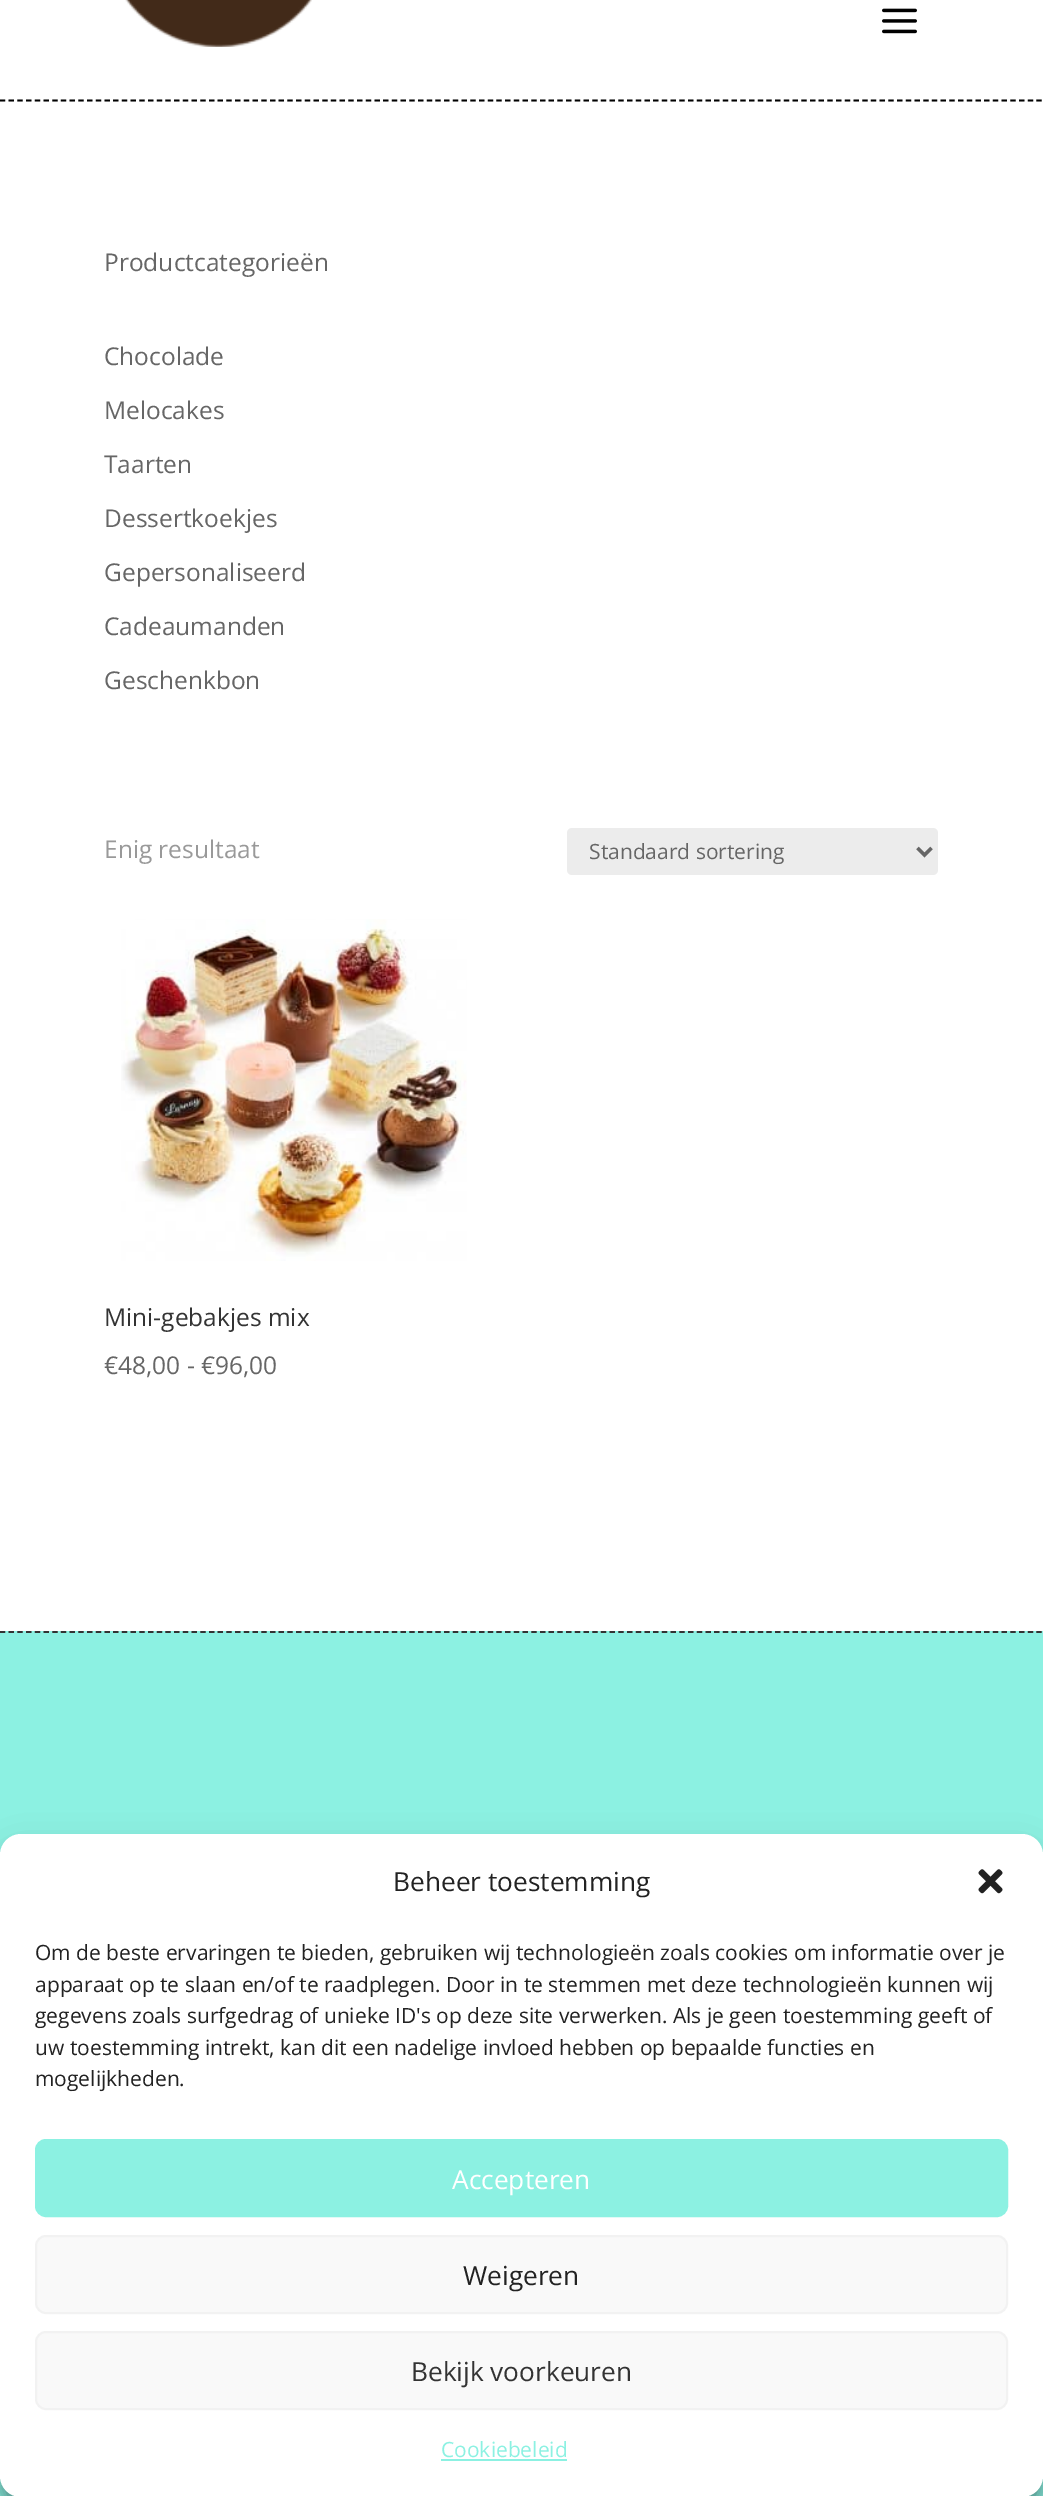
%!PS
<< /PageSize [1043 2496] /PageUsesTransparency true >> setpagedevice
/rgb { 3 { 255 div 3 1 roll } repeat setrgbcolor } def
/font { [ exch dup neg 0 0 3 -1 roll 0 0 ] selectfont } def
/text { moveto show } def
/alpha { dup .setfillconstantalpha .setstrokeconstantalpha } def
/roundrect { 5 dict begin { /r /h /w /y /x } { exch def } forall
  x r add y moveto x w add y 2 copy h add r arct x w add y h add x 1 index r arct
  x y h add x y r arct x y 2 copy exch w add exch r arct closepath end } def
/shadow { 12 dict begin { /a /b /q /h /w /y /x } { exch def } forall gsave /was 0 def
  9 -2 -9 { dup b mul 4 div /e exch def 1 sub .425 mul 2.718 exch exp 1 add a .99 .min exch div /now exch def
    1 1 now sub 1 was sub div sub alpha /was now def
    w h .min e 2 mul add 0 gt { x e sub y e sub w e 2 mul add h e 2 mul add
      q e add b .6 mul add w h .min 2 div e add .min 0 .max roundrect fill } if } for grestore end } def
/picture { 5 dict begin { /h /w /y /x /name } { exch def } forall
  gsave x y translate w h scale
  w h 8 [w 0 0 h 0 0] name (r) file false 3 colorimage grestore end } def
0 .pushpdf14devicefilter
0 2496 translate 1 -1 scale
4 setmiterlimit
255 255 255 rgb
0 0 1043 2496 rectfill
0 0 0 rgb
1.8 setlinewidth
[5.25 3.46] 0 setdash
0 100.5 moveto 1043 0 rlineto stroke
(img_01.rgb) 125 0 187 47 picture
(img_02.rgb) 882 8 35 26 picture
236 236 236 rgb
567 828 371 47 5 roundrect fill
102 102 102 rgb
3.5 setlinewidth
[] 0 setdash
917.5 848 moveto 7 7 rlineto 7 -7 rlineto stroke
(img_03.rgb) 121 919 346 342 picture
140 241 226 rgb
0 1631 1043 865 rectfill
51 51 51 rgb
1.8 setlinewidth
[5.25 3.46] 0 setdash
0 1632 moveto 1043 0 rlineto stroke
0 0 0 rgb
0 1845 1043 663 21 5 0.23 shadow
0 1852 1043 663 21 17.5 0.19 shadow
255 255 255 rgb
0 1834 1043 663 21 roundrect fill
(img_04.rgb) 978 1869 25 25 picture
140 241 226 rgb
36 2140 971 76 10 roundrect gsave fill grestore
2 setlinewidth
[] 0 setdash
stroke
249 249 249 rgb
36 2236 971 77 10 roundrect gsave fill grestore
242 242 242 rgb
stroke
249 249 249 rgb
36 2332 971 77 10 roundrect gsave fill grestore
242 242 242 rgb
stroke
140 241 226 rgb
441 2459 126 2 rectfill
/OpenSans-Regular 24.5 font
102 102 102 rgb
(Productcategorieën) 104 271 text
(Chocolade) 104 365 text
(Melocakes) 104 419 text
(Taarten) 104 473 text
(Dessertkoekjes) 104 527 text
(Gepersonaliseerd) 104 581 text
(Cadeaumanden) 104 635 text
(Geschenkbon) 104 689 text
153 153 153 rgb
(Enig resultaat) 104 858 text
/OpenSans-Regular 21 font
102 102 102 rgb
(Standaard sortering) 589 859 text
/OpenSans-Regular 24.5 font
51 51 51 rgb
(Mini-gebakjes mix) 104 1326 text
102 102 102 rgb
(€48,00 - €96,00) 104 1374 text
/OpenSans-Regular 26.25 font
34 34 34 rgb
(Beheer toestemming) 393 1891 text
/OpenSans-Regular 21 font
(Om de beste ervaringen te bieden, gebruiken wij technologieën zoals cookies om informatie over je) 35 1960 text
(apparaat op te slaan en/of te raadplegen. Door in te stemmen met deze technologieën kunnen wij) 35 1992 text
(gegevens zoals surfgedrag of unieke ID's op deze site verwerken. Als je geen toestemming geeft of) 35 2023 text
(uw toestemming intrekt, kan dit een nadelige invloed hebben op bepaalde functies en) 35 2055 text
(mogelijkheden.) 35 2086 text
/OpenSans-Regular 26.25 font
255 255 255 rgb
(Accepteren) 452 2189 text
34 34 34 rgb
(Weigeren) 463 2285 text
51 51 51 rgb
(Bekijk voorkeuren) 411 2381 text
/OpenSans-Regular 21 font
140 241 226 rgb
(Cookiebeleid) 441 2457 text
.poppdf14devicefilter showpage
